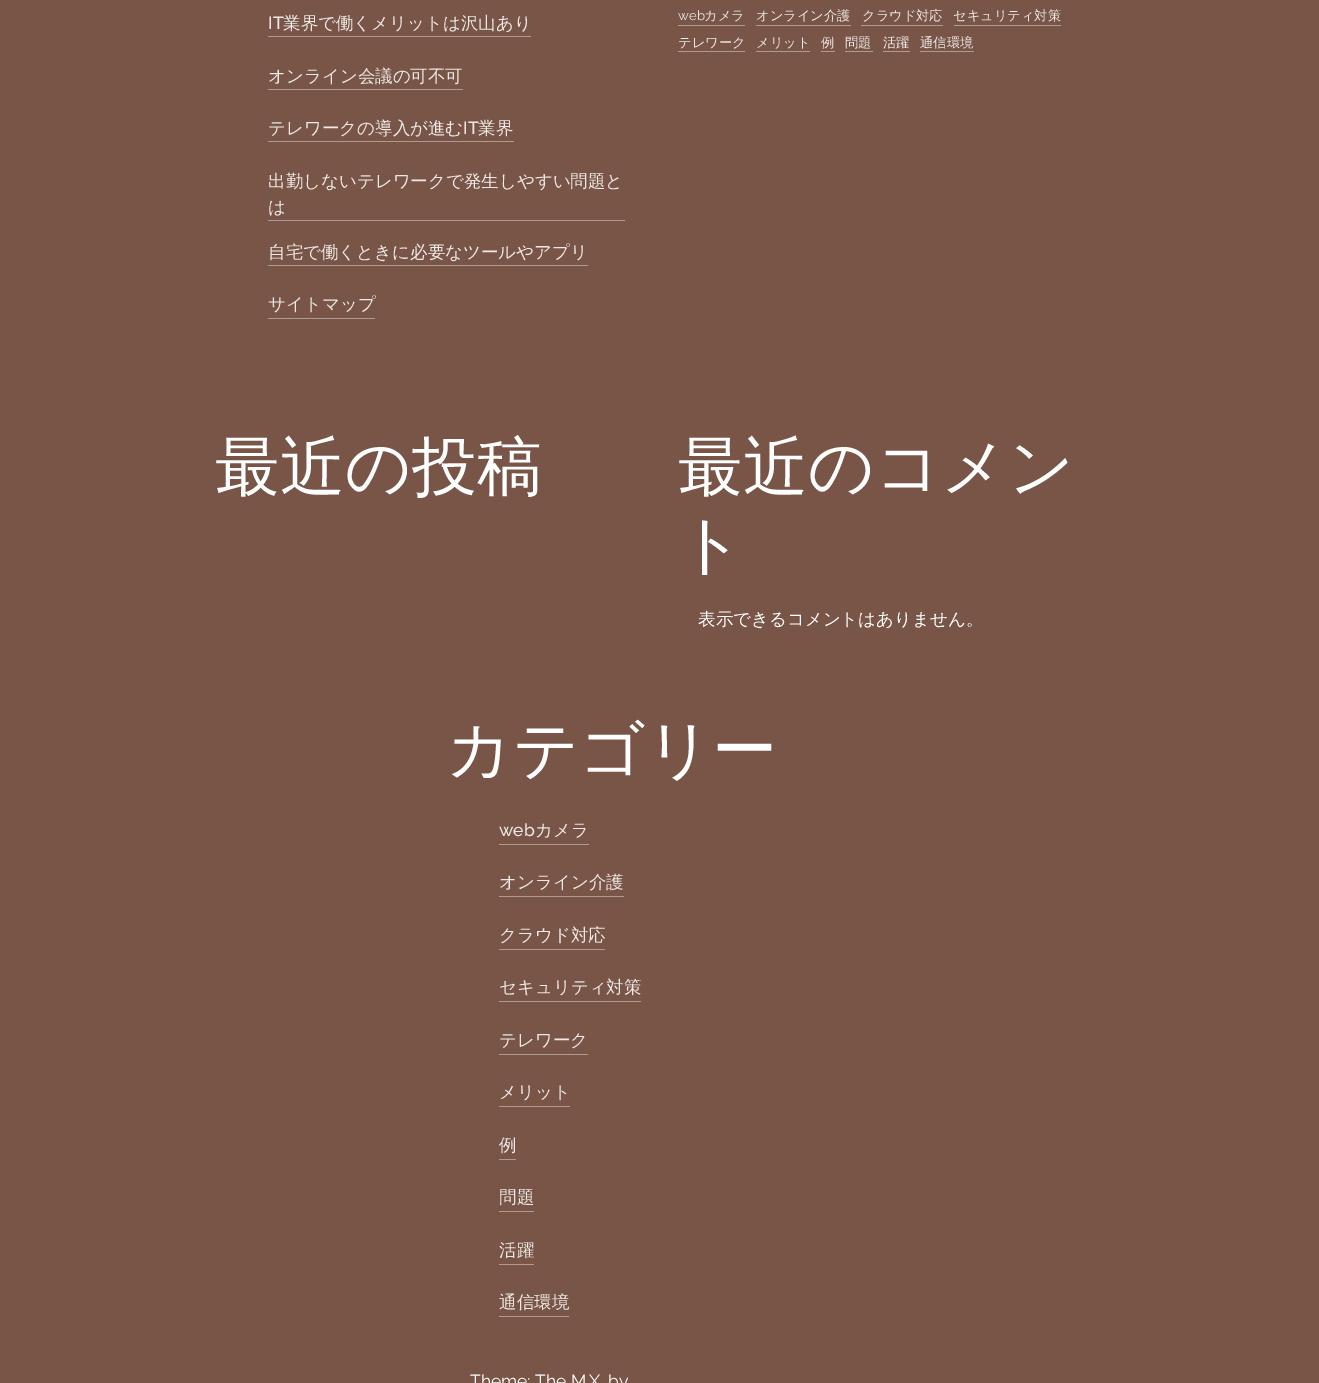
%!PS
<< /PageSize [1319 1383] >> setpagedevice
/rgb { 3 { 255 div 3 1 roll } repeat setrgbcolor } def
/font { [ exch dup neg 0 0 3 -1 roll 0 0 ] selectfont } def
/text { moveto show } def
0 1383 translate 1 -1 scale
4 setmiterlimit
121 85 72 rgb
0 0 1319 1383 rectfill
175 153 145 rgb
268 36 263 1 rectfill
268 89 195 1 rectfill
268 141 246 1 rectfill
268 220 357 1 rectfill
268 265 320 1 rectfill
268 318 107 1 rectfill
678 25 67 1 rectfill
756 25 95 1 rectfill
861 25 82 1 rectfill
954 25 107 1 rectfill
678 51 67 1 rectfill
756 51 54 1 rectfill
821 51 14 1 rectfill
845 51 28 1 rectfill
883 51 27 1 rectfill
920 51 54 1 rectfill
499 844 90 1 rectfill
499 896 125 1 rectfill
499 949 106 1 rectfill
499 1001 142 1 rectfill
499 1054 89 1 rectfill
499 1106 71 1 rectfill
499 1159 17 1 rectfill
499 1211 35 1 rectfill
499 1264 35 1 rectfill
499 1316 70 1 rectfill
/Raleway-Medium 17.5 font
238 233 231 rgb
(IT) 268 29 text
/WenQuanYiZenHei-Medium 17.5 font
(業界で働くメリットは沢山あり) 283 29 text
(オンライン会議の可不可) 268 82 text
(テレワークの導入が進む) 268 134 text
/Raleway-Medium 17.5 font
(IT) 463 134 text
/WenQuanYiZenHei-Medium 17.5 font
(業界) 478 134 text
(出勤しないテレワークで発生しやすい問題と) 268 187 text
(は) 268 213 text
(自宅で働くときに必要なツールやアプリ) 268 258 text
(サイトマップ) 268 310 text
/Raleway-Regular 13.25 font
(web) 678 20 text
/WenQuanYiZenHei-Medium 13.25 font
(カメラ) 704 20 text
(オンライン介護) 756 20 text
(クラウド対応) 862 20 text
(セキュリティ対策) 953 20 text
(テレワーク) 678 47 text
(メリット) 756 47 text
(例) 821 47 text
(問題) 845 47 text
(活躍) 883 47 text
(通信環境) 920 47 text
/WenQuanYiZenHei-Medium 65 font
255 255 255 rgb
(最近の投稿) 215 489 text
(最近のコメン) 678 489 text
(ト) 678 567 text
/WenQuanYiZenHei-Medium 17.5 font
(表示できるコメントはありません。) 698 625 text
/WenQuanYiZenHei-Medium 65 font
(カテゴリー) 446 772 text
/Raleway-Medium 17.5 font
238 233 231 rgb
(web) 499 836 text
/WenQuanYiZenHei-Medium 17.5 font
(カメラ) 535 836 text
(オンライン介護) 499 888 text
(クラウド対応) 499 941 text
(セキュリティ対策) 499 993 text
(テレワーク) 499 1046 text
(メリット) 499 1098 text
(例) 499 1151 text
(問題) 499 1203 text
(活躍) 499 1256 text
(通信環境) 499 1308 text
/Raleway-Regular 17.5 font
255 255 255 rgb
(Theme: The M.X. by) 470 1387 text
showpage
